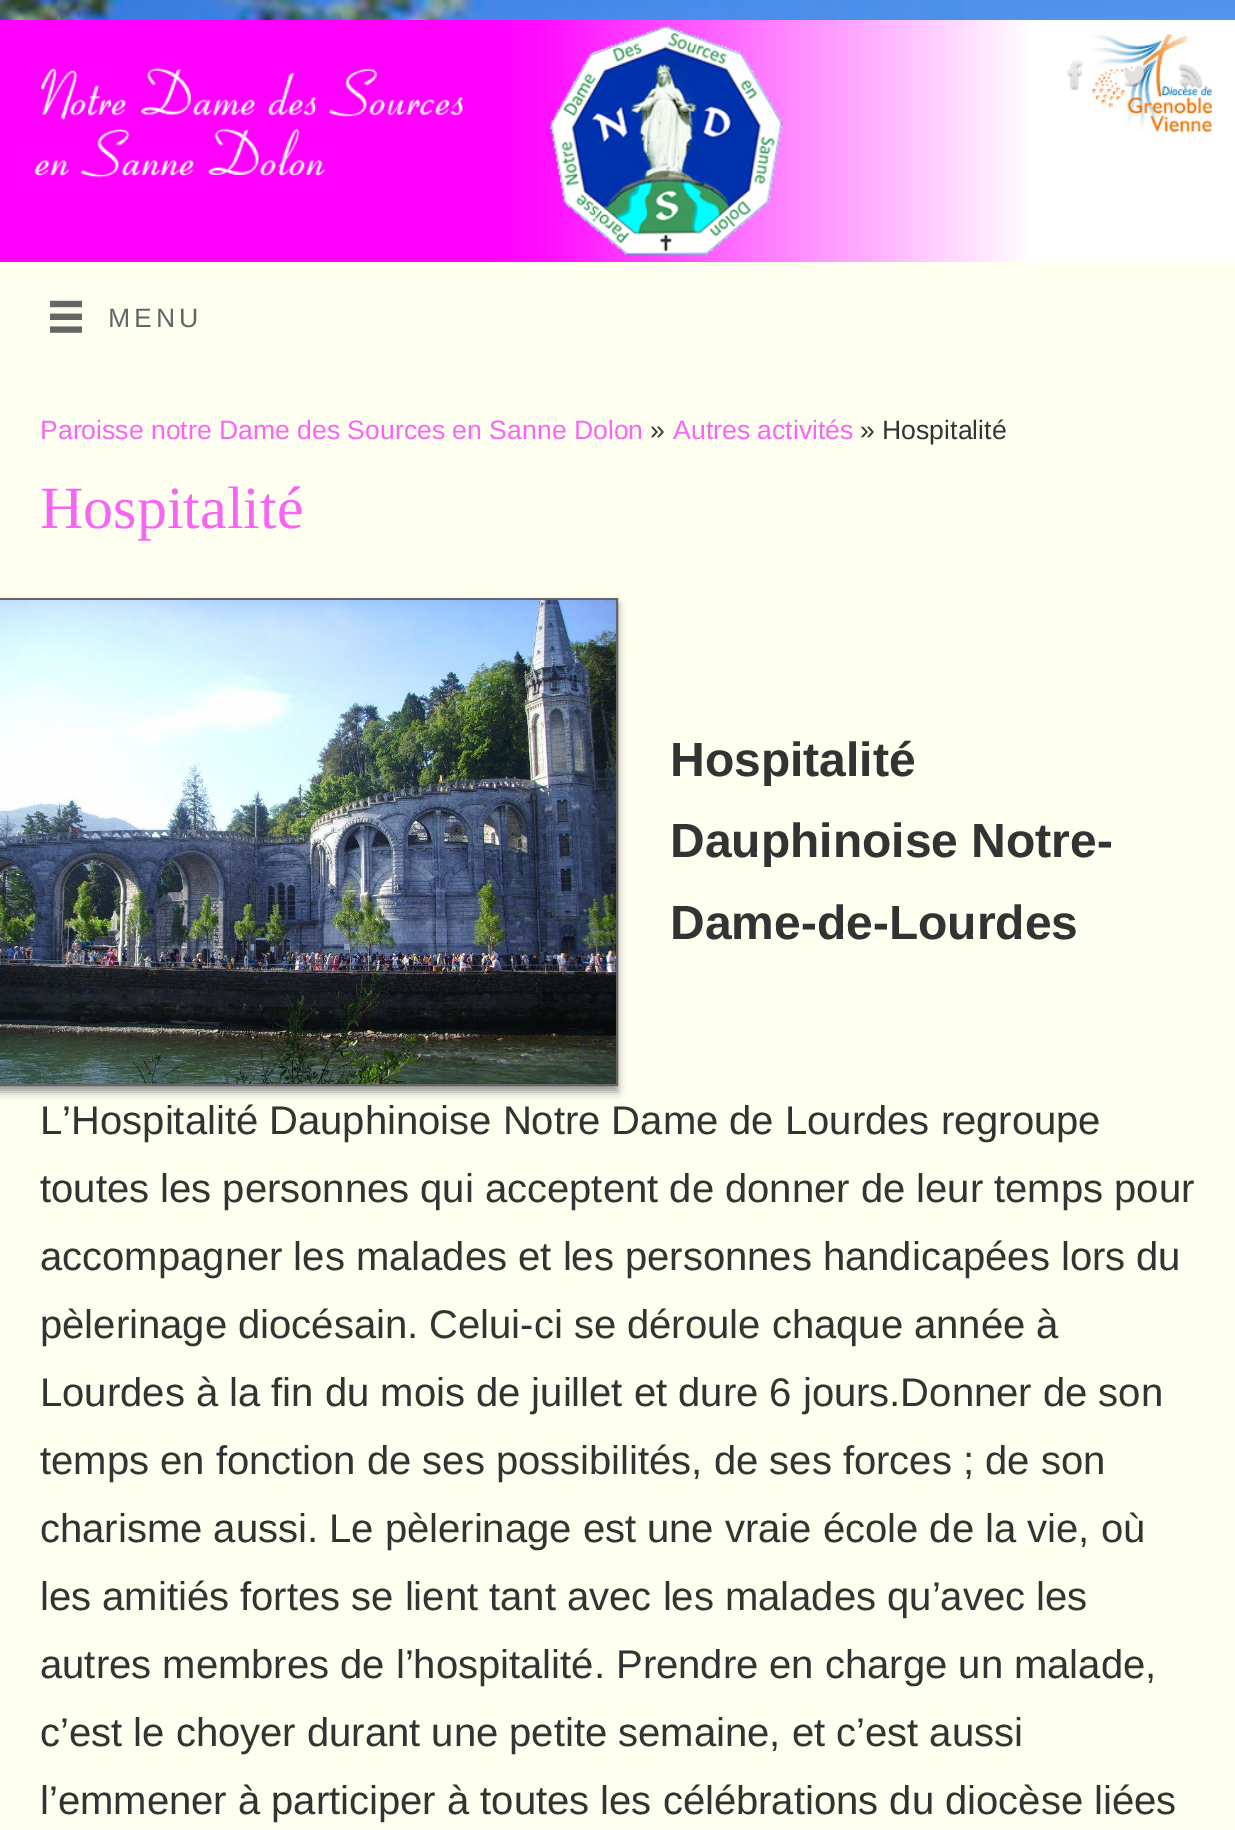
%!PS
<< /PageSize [1235 1830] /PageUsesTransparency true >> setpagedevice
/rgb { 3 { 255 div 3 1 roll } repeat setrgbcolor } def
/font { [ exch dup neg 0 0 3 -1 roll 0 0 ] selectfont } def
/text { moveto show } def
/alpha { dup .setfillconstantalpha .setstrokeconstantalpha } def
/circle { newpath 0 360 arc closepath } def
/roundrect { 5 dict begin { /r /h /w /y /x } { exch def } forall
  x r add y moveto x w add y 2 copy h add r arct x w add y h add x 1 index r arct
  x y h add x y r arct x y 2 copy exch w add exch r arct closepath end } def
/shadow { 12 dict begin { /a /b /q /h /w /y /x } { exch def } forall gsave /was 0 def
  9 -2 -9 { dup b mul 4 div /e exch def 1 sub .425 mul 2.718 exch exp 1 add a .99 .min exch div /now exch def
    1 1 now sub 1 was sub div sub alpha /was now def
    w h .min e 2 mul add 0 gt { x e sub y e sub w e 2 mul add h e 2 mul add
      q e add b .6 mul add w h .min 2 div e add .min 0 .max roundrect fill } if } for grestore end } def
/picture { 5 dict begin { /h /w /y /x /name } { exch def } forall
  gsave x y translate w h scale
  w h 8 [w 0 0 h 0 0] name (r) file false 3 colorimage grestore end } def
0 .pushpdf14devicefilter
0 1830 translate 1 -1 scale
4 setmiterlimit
255 255 255 rgb
0 0 1235 1830 rectfill
(img_01.rgb) 0 0 1235 20 picture
(img_02.rgb) 0 20 1235 242 picture
0.1 alpha
1076 74 24 circle fill
1 alpha
(img_03.rgb) 1066 60 17 31 picture
0.1 alpha
1134 74 24 circle fill
1 alpha
(img_04.rgb) 1124 65 24 22 picture
0.1 alpha
1192 74 24 circle fill
1 alpha
(img_05.rgb) 1178 64 25 25 picture
255 255 240 rgb
0 262 1235 1568 rectfill
(img_06.rgb) 50 300 32 33 picture
153 153 153 rgb
-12 604 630 488 0 4 1 shadow
102 102 102 rgb
2 setlinewidth
-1 599 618 486 rectstroke
(img_07.rgb) 0 600 616 484 picture
/LiberationSans-Regular 26.6 font
108 327 moveto 4 0 (MENU) ashow
249 100 245 rgb
(Paroisse notre Dame des Sources en Sanne Dolon) 40 439 text
51 51 51 rgb
(») 650 439 text
249 100 245 rgb
(Autres activités) 673 439 text
51 51 51 rgb
(» Hospitalité) 860 439 text
/LiberationSerif-Regular 60 font
249 100 245 rgb
(Hospitalité) 40 528 text
/LiberationSans-Bold 48 font
51 51 51 rgb
(Hospitalité) 670 776 text
(Dauphinoise Notre-) 670 857 text
(Dame-de-Lourdes) 670 939 text
/LiberationSans-Regular 40 font
(L’Hospitalité Dauphinoise Notre Dame de Lourdes regroupe) 40 1134 text
(toutes les personnes qui acceptent de donner de leur temps pour) 40 1202 text
(accompagner les malades et les personnes handicapées lors du) 40 1270 text
(pèlerinage diocésain. Celui-ci se déroule chaque année à) 40 1338 text
(Lourdes à la fin du mois de juillet et dure 6 jours.Donner de son) 40 1406 text
(temps en fonction de ses possibilités, de ses forces ; de son) 40 1474 text
(charisme aussi. Le pèlerinage est une vraie école de la vie, où) 40 1542 text
(les amitiés fortes se lient tant avec les malades qu’avec les) 40 1610 text
(autres membres de l’hospitalité. Prendre en charge un malade,) 40 1678 text
(c’est le choyer durant une petite semaine, et c’est aussi) 40 1746 text
(l’emmener à participer à toutes les célébrations du diocèse liées) 40 1814 text
.poppdf14devicefilter showpage
